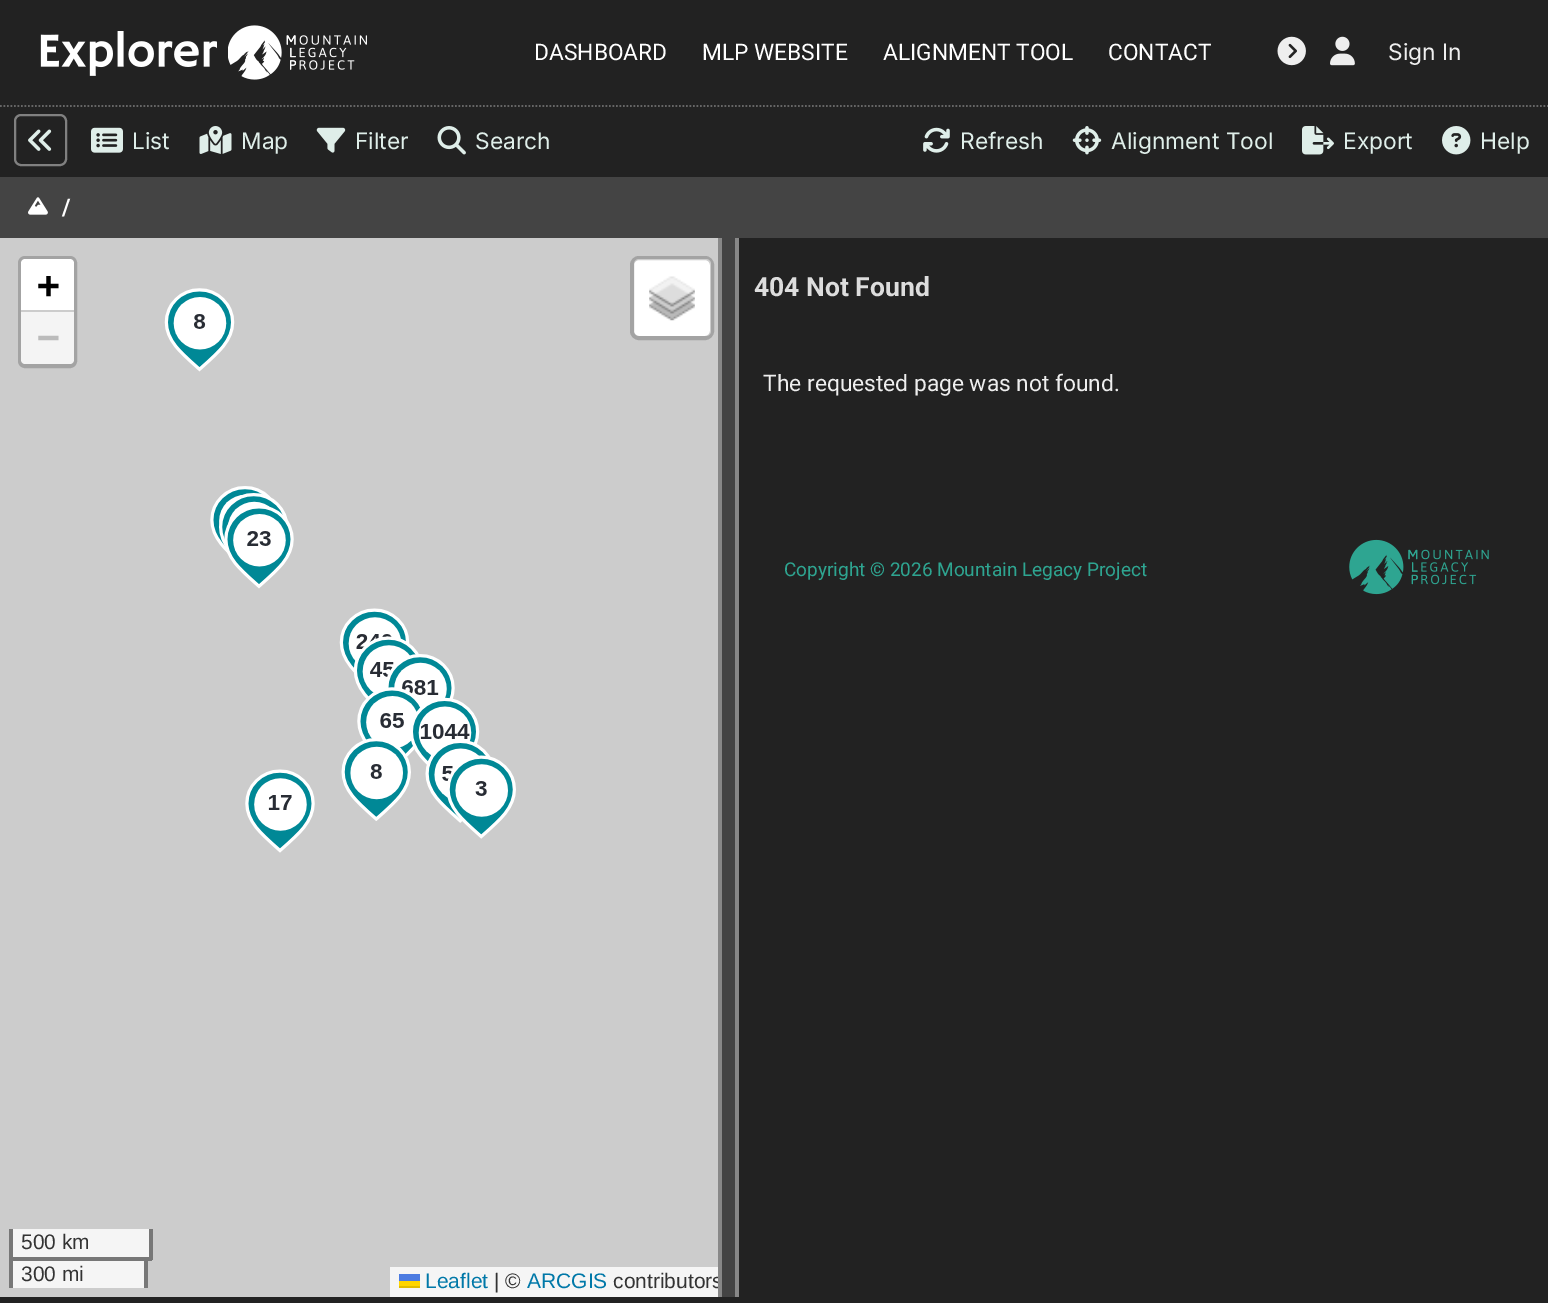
%!PS
<< /PageSize [1548 1303] /PageUsesTransparency true >> setpagedevice
/rgb { 3 { 255 div 3 1 roll } repeat setrgbcolor } def
/font { [ exch dup neg 0 0 3 -1 roll 0 0 ] selectfont } def
/text { moveto show } def
/alpha { dup .setfillconstantalpha .setstrokeconstantalpha } def
/roundrect { 5 dict begin { /r /h /w /y /x } { exch def } forall
  x r add y moveto x w add y 2 copy h add r arct x w add y h add x 1 index r arct
  x y h add x y r arct x y 2 copy exch w add exch r arct closepath end } def
/picture { 5 dict begin { /h /w /y /x /name } { exch def } forall
  gsave x y translate w h scale
  w h 8 [w 0 0 h 0 0] name (r) file false 3 colorimage grestore end } def
0 .pushpdf14devicefilter
0 1303 translate 1 -1 scale
4 setmiterlimit
34 34 34 rgb
0 0 1548 1303 rectfill
(img_01.rgb) 40 31 177 45 picture
(img_02.rgb) 228 25 139 55 picture
(img_03.rgb) 1277 36 29 30 picture
(img_04.rgb) 1330 36 25 30 picture
102 102 102 rgb
1.8 setlinewidth
[1.75 1.75] 0 setdash
0 106 moveto 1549 0 rlineto stroke
128 128 128 rgb
2 setlinewidth
[] 0 setdash
15 115 51 50 6 roundrect stroke
(img_05.rgb) 28 129 24 22 picture
(img_06.rgb) 91 127 32 26 picture
(img_07.rgb) 199 126 33 28 picture
(img_08.rgb) 316 127 30 26 picture
(img_09.rgb) 437 126 29 29 picture
(img_10.rgb) 923 127 27 26 picture
(img_11.rgb) 1072 126 30 29 picture
(img_12.rgb) 1302 126 32 29 picture
(img_13.rgb) 1442 126 29 29 picture
68 68 68 rgb
0 177 1548 61 rectfill
(img_14.rgb) 28 197 20 18 picture
204 204 204 rgb
0 238 718 1059 rectfill
245 245 245 rgb
13 1261 131 27 rectfill
163 163 163 rgb
4 setlinewidth
20 258 55 108 5 roundrect stroke
255 255 255 rgb
25 259 moveto 45 0 rlineto 2 0 4 2 4 4 rcurveto 0 49 rlineto -53 0 rlineto 0 -49 rlineto 0 -2 2 -4 4 -4 rcurveto closepath fill
204 204 204 rgb
21 310 53 2 rectfill
244 244 244 rgb
21 312 moveto 53 0 rlineto 0 48 rlineto 0 2 -2 4 -4 4 rcurveto -45 0 rlineto -2 0 -4 -2 -4 -4 rcurveto closepath fill
255 255 255 rgb
634 259 77 77 5 roundrect fill
0.2 alpha
0 0 0 rgb
632 258 80 80 7 roundrect stroke
1 alpha
(img_15.rgb) 649 276 46 45 picture
245 245 245 rgb
13 1229 136 28 rectfill
119 119 119 rgb
149 1229 4 31 rectfill
148 1257 4 4 rectfill
9 1229 4 31 rectfill
9 1257 138 4 rectfill
144 1257 4 31 rectfill
9 1257 4 31 rectfill
245 245 245 rgb
390 1267 328 30 rectfill
76 123 225 rgb
399 1274 21 7 rectfill
255 213 0 rgb
399 1281 21 5 rectfill
224 188 0 rgb
399 1286 21 2 rectfill
(img_16.rgb) 164 288 71 84 picture
(img_17.rgb) 210 486 62 69 picture
(img_18.rgb) 219 493 69 55 picture
(img_19.rgb) 224 506 70 83 picture
(img_20.rgb) 339 608 71 65 picture
(img_21.rgb) 354 636 66 63 picture
(img_22.rgb) 386 654 69 52 picture
(img_23.rgb) 357 687 66 70 picture
(img_24.rgb) 411 697 69 68 picture
(img_25.rgb) 341 738 70 83 picture
(img_26.rgb) 425 741 66 82 picture
(img_27.rgb) 245 769 70 84 picture
(img_28.rgb) 447 755 69 84 picture
68 68 68 rgb
722 238 13 1059 rectfill
136 136 136 rgb
735 238 4 1059 rectfill
(img_29.rgb) 1349 539 140 56 picture
/Roboto-Regular 22.75 font
255 255 255 rgb
(DASHBOARD) 534 60 text
(MLP WEBSITE) 702 60 text
(ALIGNMENT TOOL) 883 60 text
(CONTACT) 1108 60 text
/Inter-Regular 22.75 font
238 238 238 rgb
(Sign In) 1388 60 text
223 238 233 rgb
(List) 132 149 text
(Map) 241 149 text
(Filter) 355 149 text
(Search) 475 149 text
(Refresh) 960 149 text
(Alignment Tool) 1111 149 text
(Export) 1343 149 text
(Help) 1480 149 text
/Roboto-Bold 22.75 font
255 255 255 rgb
(/) 62 215 text
/DejaVuSansMono-Bold 38 font
0 0 0 rgb
(+) 37 298 text
187 187 187 rgb
(−) 37 350 text
/LiberationSans-Regular 21 font
51 51 51 rgb
(500 km) 21 1249 text
(300 mi) 21 1281 text
0 120 168 rgb
(Leaflet) 425 1288 text
51 51 51 rgb
(| ©) 494 1288 text
0 120 168 rgb
(ARCGIS) 527 1288 text
51 51 51 rgb
(contributors) 613 1288 text
136 136 136 rgb
718 238 4 1059 rectfill
/Roboto-Bold 26.5 font
221 221 221 rgb
(404 Not Found) 754 296 text
/Roboto-Regular 22.75 font
238 238 238 rgb
(The requested page was not found.) 763 391 text
/Roboto-Regular 19 font
46 165 145 rgb
(Copyright © 2026 Mountain Legacy Project) 784 576 text
.poppdf14devicefilter showpage
